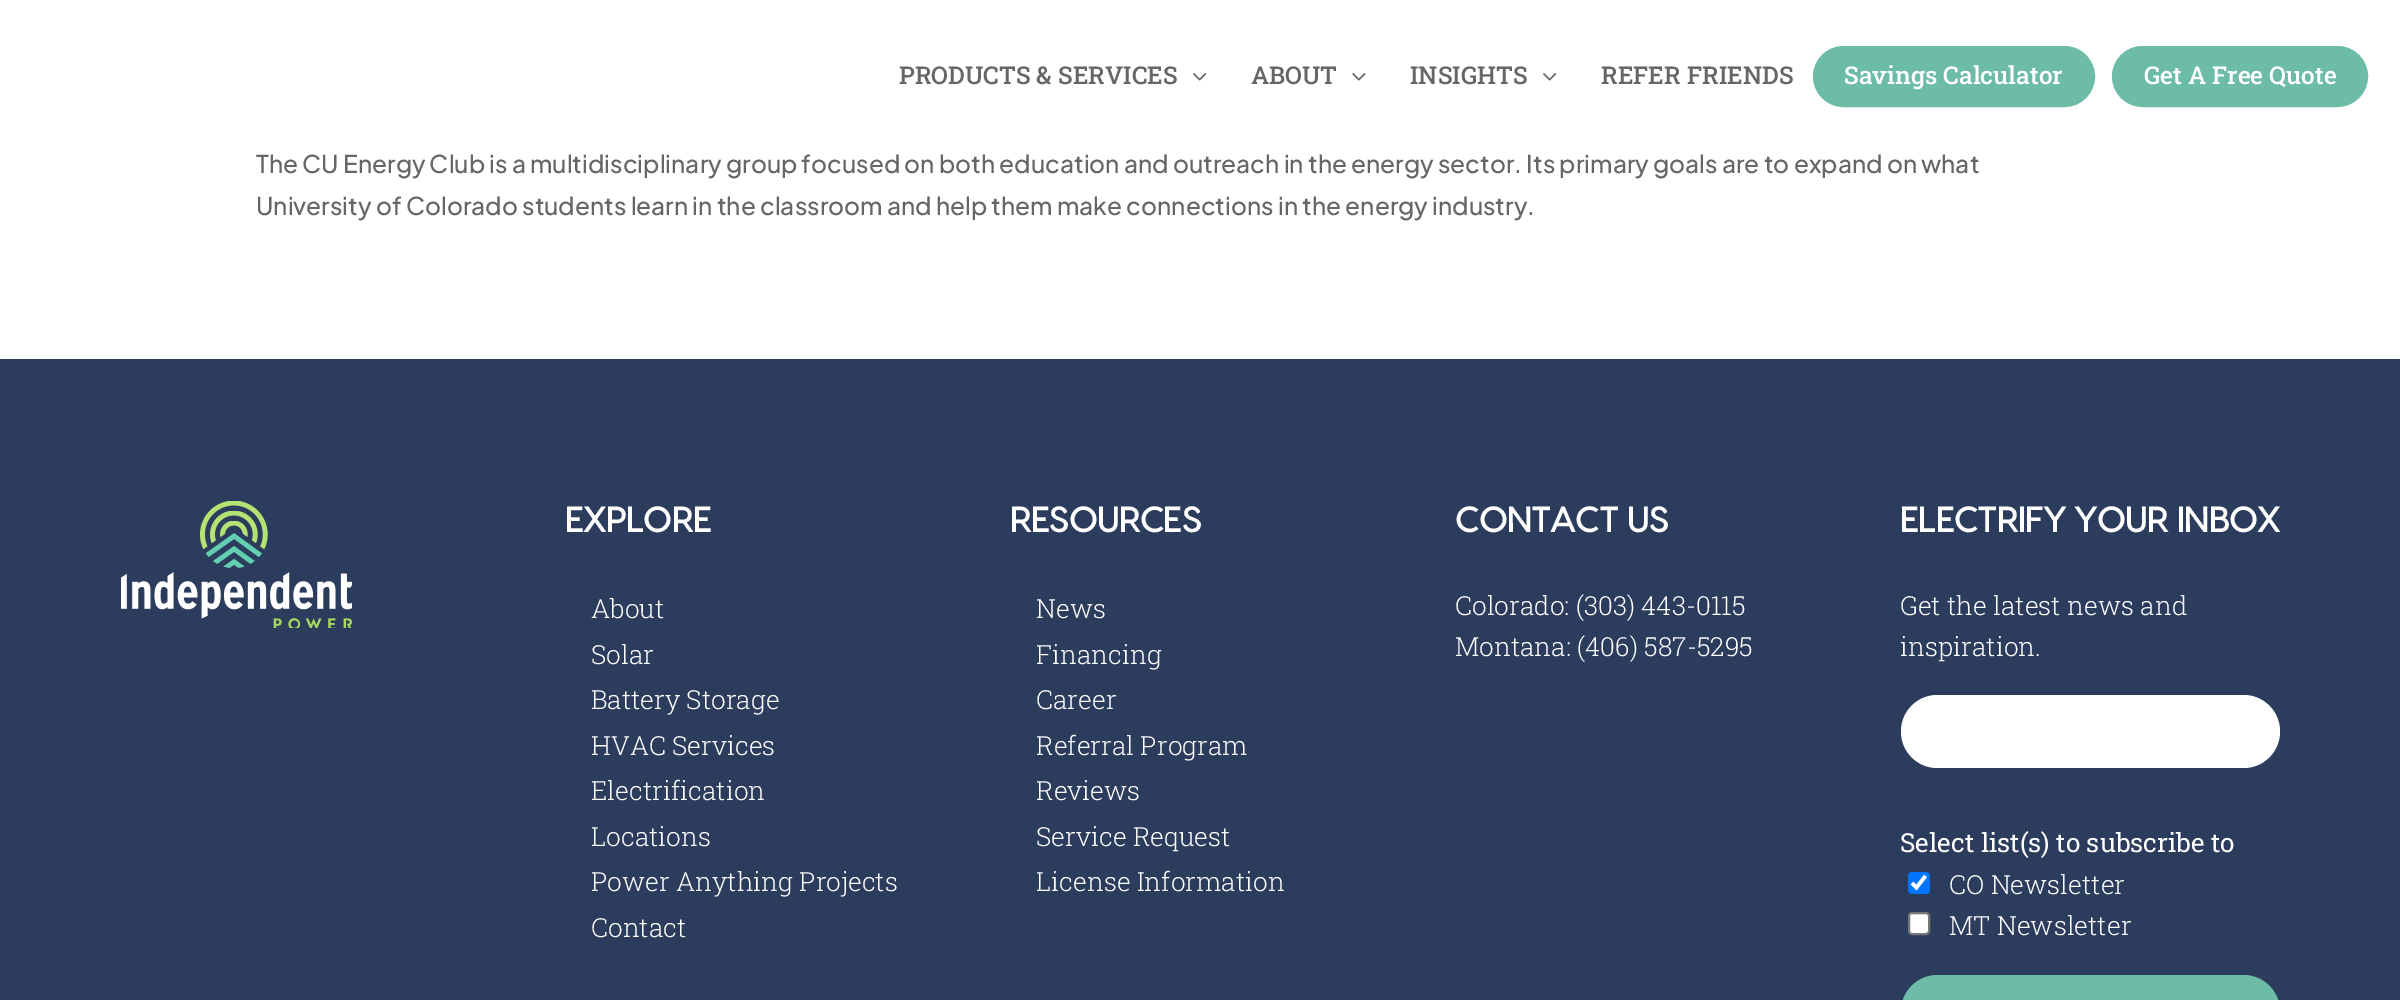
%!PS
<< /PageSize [2400 1000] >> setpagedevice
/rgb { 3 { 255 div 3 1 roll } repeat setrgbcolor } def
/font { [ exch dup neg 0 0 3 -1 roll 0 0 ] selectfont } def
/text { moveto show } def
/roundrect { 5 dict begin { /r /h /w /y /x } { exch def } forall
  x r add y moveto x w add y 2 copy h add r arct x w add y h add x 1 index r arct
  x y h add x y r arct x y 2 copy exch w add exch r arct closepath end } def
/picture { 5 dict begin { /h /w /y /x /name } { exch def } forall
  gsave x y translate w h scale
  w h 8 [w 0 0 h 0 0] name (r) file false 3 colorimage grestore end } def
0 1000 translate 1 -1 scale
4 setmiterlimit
255 255 255 rgb
0 0 2400 1000 rectfill
(img_01.rgb) 1193 73 14 8 picture
(img_02.rgb) 1352 73 14 8 picture
(img_01.rgb) 1543 73 14 8 picture
108 188 168 rgb
1815 48 278 57 28.5 roundrect gsave fill grestore
4 setlinewidth
stroke
2114 48 252 57 28.5 roundrect gsave fill grestore
stroke
44 60 92 rgb
0 359 2400 641 rectfill
(img_03.rgb) 121 501 231 127 picture
255 255 255 rgb
1901 695 379 73 36.5 roundrect fill
0 117 255 rgb
1908 872 22 22 4 roundrect fill
255 255 255 rgb
3.6 setlinewidth
1912 883 moveto 4.5 4.5 rlineto 9 -11.5 rlineto stroke
1909 913 20 21 3 roundrect gsave fill grestore
118 118 118 rgb
2 setlinewidth
stroke
108 188 168 rgb
1901 975 379 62 36.5 roundrect fill
/RobotoSlab-Medium 24.5 font
102 102 102 rgb
(PRODUCTS & SERVICES) 899 84 text
(ABOUT) 1251 84 text
(INSIGHTS) 1410 84 text
(REFER FRIENDS) 1601 84 text
255 255 255 rgb
(Savings Calculator) 1844 84 text
(Get A Free Quote) 2144 84 text
/PlusJakartaSans-Medium 24.5 font
102 102 102 rgb
(The CU Energy Club is a multidisciplinary group focused on both education and outreach in the energy sector. Its primary goals are to expand on what) 256 173 text
(University of Colorado students learn in the classroom and help them make connections in the energy industry.) 256 215 text
/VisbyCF-Bold 35 font
255 255 255 rgb
(EXPLORE) 565 532 text
/RobotoSlab-Light 26.25 font
(About) 591 618 text
(Solar) 591 664 text
(Battery Storage) 591 709 text
(HVAC Services) 591 755 text
(Electrification) 591 800 text
(Locations) 591 846 text
(Power Anything Projects) 591 891 text
(Contact) 591 937 text
/VisbyCF-Bold 35 font
(RESOURCES) 1010 532 text
/RobotoSlab-Light 26.25 font
(News) 1036 618 text
(Financing) 1036 664 text
(Career) 1036 709 text
(Referral Program) 1036 755 text
(Reviews) 1036 800 text
(Service Request) 1036 846 text
(License Information) 1036 891 text
/VisbyCF-Bold 35 font
(CONTACT US) 1455 532 text
/RobotoSlab-Light 26.25 font
(Colorado: \(303\) 443-0115) 1455 615 text
(Montana: \(406\) 587-5295) 1455 656 text
/VisbyCF-Bold 35 font
(ELECTRIFY YOUR INBOX) 1900 532 text
/RobotoSlab-Light 26.25 font
(Get the latest news and) 1900 615 text
(inspiration.) 1900 656 text
/RobotoSlab-Regular 26.25 font
(Select list\(s\) to subscribe to) 1900 852 text
/RobotoSlab-Light 26.25 font
(CO Newsletter) 1949 894 text
(MT Newsletter) 1949 935 text
showpage
